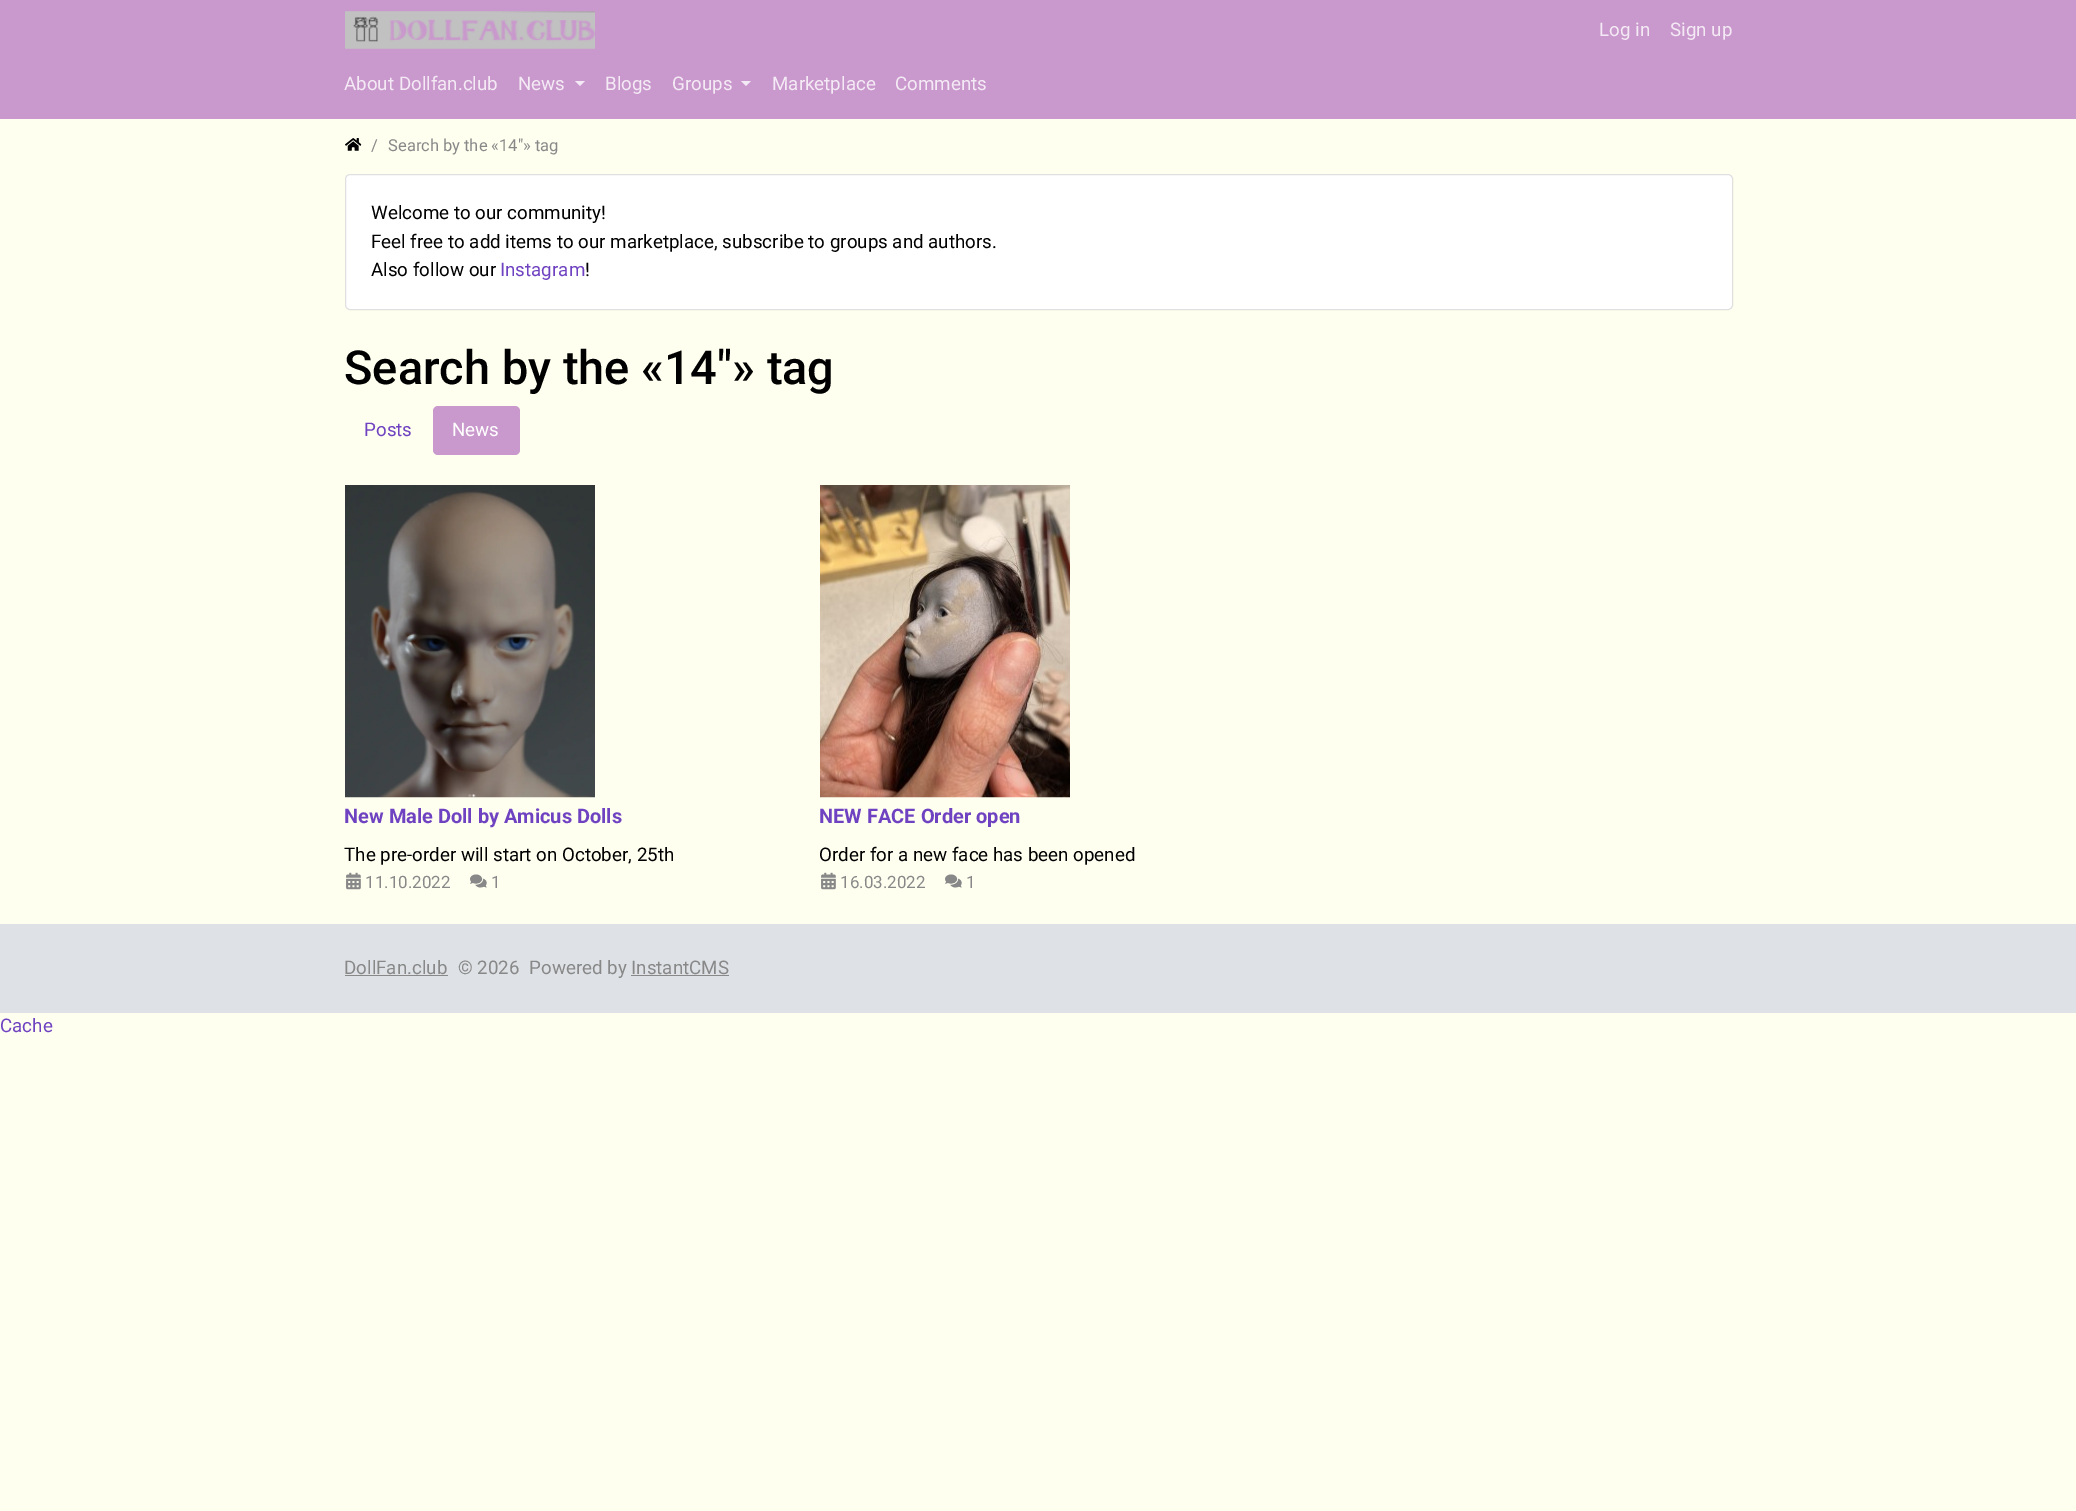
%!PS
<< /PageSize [2076 1511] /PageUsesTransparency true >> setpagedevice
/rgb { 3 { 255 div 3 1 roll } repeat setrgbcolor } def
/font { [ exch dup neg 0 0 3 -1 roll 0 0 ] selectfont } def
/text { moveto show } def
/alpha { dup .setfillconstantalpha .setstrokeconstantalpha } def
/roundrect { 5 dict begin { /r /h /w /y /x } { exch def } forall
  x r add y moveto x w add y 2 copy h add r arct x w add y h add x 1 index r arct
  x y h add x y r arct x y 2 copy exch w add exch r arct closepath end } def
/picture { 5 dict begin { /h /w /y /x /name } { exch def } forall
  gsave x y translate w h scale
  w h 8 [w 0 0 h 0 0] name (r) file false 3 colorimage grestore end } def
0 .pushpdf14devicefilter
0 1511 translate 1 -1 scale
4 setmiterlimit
255 255 240 rgb
0 0 2076 1511 rectfill
201 152 204 rgb
0 0 2076 119 rectfill
(img_01.rgb) 345 11 250 38 picture
244 234 245 rgb
575 81 moveto 10 0 rlineto -5 5 rlineto closepath fill
741 81 moveto 10 0 rlineto -5 5 rlineto closepath fill
(img_02.rgb) 345 138 17 13 picture
255 255 255 rgb
345 174 1388 136 5 roundrect fill
0.12 alpha
0 0 0 rgb
345.5 174.5 1387 135 4.5 roundrect stroke
1 alpha
201 152 204 rgb
433 406 87 49 5 roundrect fill
(img_03.rgb) 345 485 250 313 picture
(img_04.rgb) 346 872 15 18 picture
(img_05.rgb) 470 874 17 14 picture
(img_06.rgb) 820 485 250 313 picture
(img_04.rgb) 821 872 15 18 picture
(img_05.rgb) 945 874 17 14 picture
222 226 230 rgb
0 924 2076 89 rectfill
136 136 136 rgb
345 975 103 1 rectfill
631 975 98 1 rectfill
/Roboto-Regular 18.75 font
244 234 245 rgb
(Log in) 1599 36 text
(Sign up) 1670 36 text
(About Dollfan.club) 344 90 text
(News) 518 90 text
(Blogs) 605 90 text
(Groups) 672 90 text
(Marketplace) 772 90 text
(Comments) 895 90 text
/Roboto-Regular 16.5 font
136 136 136 rgb
(/) 371 151 text
(Search by the «14"» tag) 388 151 text
/Roboto-Regular 18.75 font
0 0 0 rgb
(Welcome to our community!) 371 219 text
(Feel free to add items to our marketplace, subscribe to groups and authors.) 371 248 text
(Also follow our) 371 276 text
111 66 193 rgb
(Instagram) 500 276 text
0 0 0 rgb
(!) 585 276 text
/Roboto-Medium 46.9 font
(Search by the «14"» tag) 344 384 text
/Roboto-Regular 18.75 font
111 66 193 rgb
(Posts) 364 436 text
255 255 255 rgb
(News) 452 436 text
/Roboto-Bold 20 font
111 66 193 rgb
(New Male Doll by Amicus Dolls) 344 823 text
/Roboto-Regular 18.75 font
0 0 0 rgb
(The pre-order will start on October, 25th) 344 861 text
/Roboto-Regular 17 font
136 136 136 rgb
(11.10.2022) 365 888 text
(1) 491 888 text
/Roboto-Bold 20 font
111 66 193 rgb
(NEW FACE Order open) 819 823 text
/Roboto-Regular 18.75 font
0 0 0 rgb
(Order for a new face has been opened) 819 861 text
/Roboto-Regular 17 font
136 136 136 rgb
(16.03.2022) 840 888 text
(1) 966 888 text
/Roboto-Regular 18.75 font
(DollFan.club) 344 974 text
(© 2026) 458 974 text
(Powered by InstantCMS) 529 974 text
111 66 193 rgb
(Cache) 0 1032 text
.poppdf14devicefilter showpage
